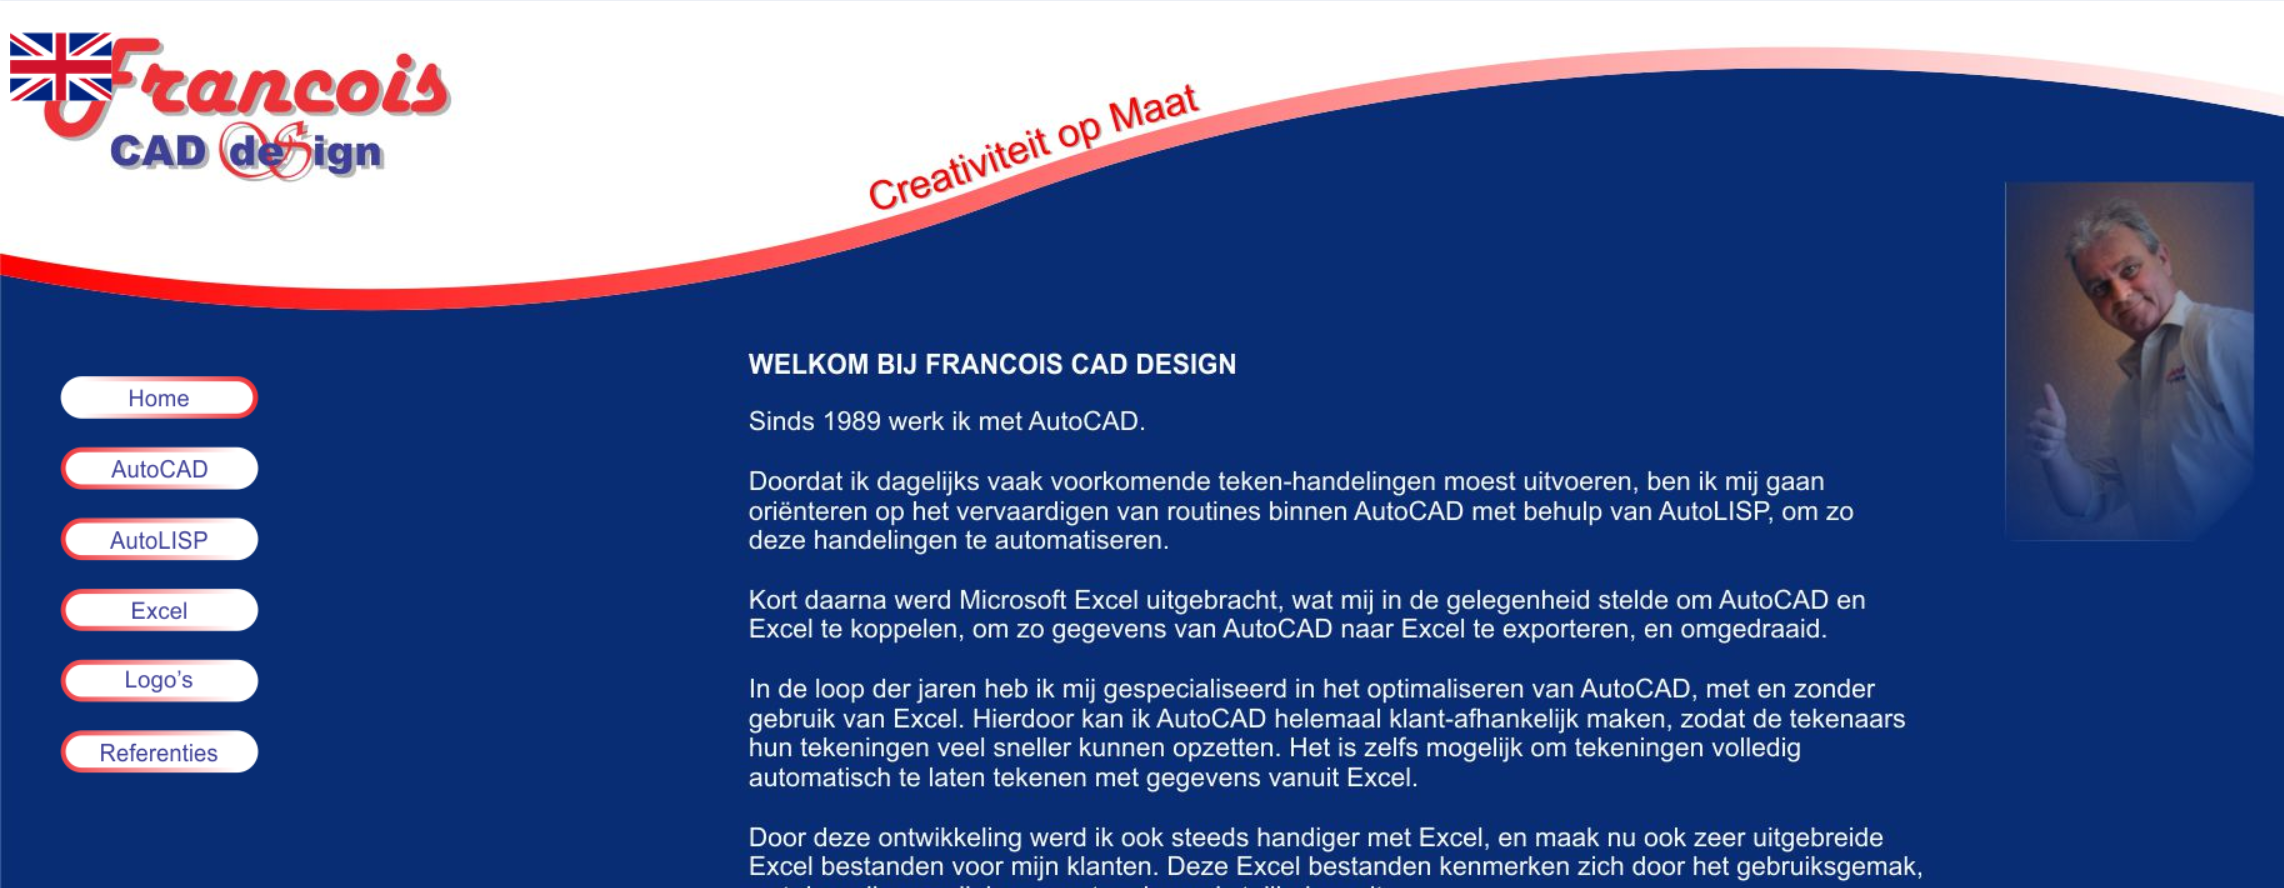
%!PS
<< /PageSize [2284 888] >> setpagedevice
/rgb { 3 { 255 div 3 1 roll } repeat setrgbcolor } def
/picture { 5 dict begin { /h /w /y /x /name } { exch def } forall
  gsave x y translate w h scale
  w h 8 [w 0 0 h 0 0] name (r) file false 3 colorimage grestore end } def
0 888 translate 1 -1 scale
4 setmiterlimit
255 255 255 rgb
0 0 2284 888 rectfill
(img_01.rgb) 0 0 2284 888 picture
(img_02.rgb) 10 32 103 70 picture
(img_03.rgb) 60 376 199 43 picture
(img_04.rgb) 60 446 199 44 picture
(img_05.rgb) 60 517 199 45 picture
(img_06.rgb) 60 588 199 44 picture
(img_07.rgb) 60 658 199 45 picture
(img_08.rgb) 60 730 199 44 picture
showpage
